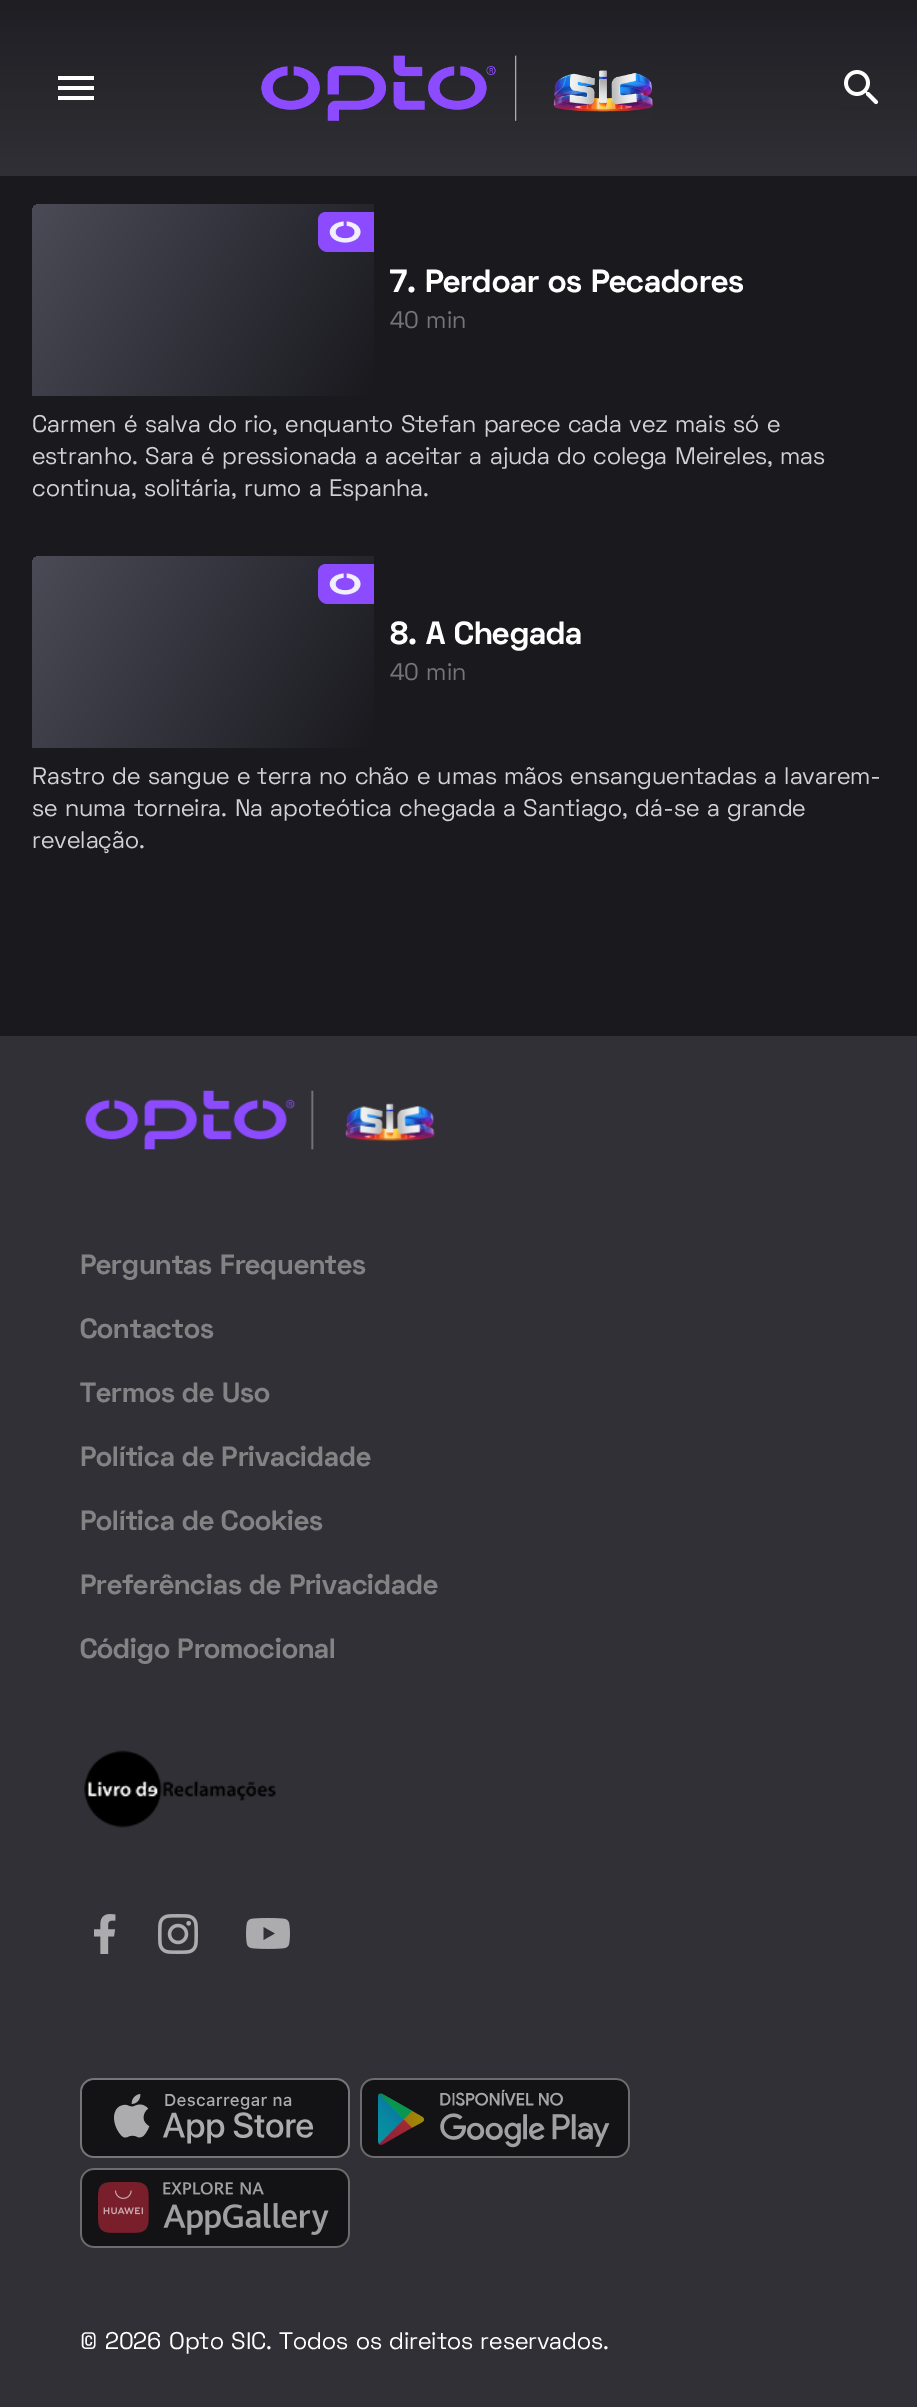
%!PS
<< /PageSize [917 2407] >> setpagedevice
/rgb { 3 { 255 div 3 1 roll } repeat setrgbcolor } def
/font { [ exch dup neg 0 0 3 -1 roll 0 0 ] selectfont } def
/text { moveto show } def
/picture { 5 dict begin { /h /w /y /x /name } { exch def } forall
  gsave x y translate w h scale
  w h 8 [w 0 0 h 0 0] name (r) file false 3 colorimage grestore end } def
0 2407 translate 1 -1 scale
4 setmiterlimit
25 25 30 rgb
0 0 917 2407 rectfill
gsave 0 0 moveto 917 0 rlineto 0 176 rlineto -917 0 rlineto closepath clip newpath
<< /ShadingType 2 /ColorSpace /DeviceRGB /Coords [459 0 459 176] /Extend [true true] /Function << /FunctionType 3 /Domain [0 1] /Functions [<< /FunctionType 2 /Domain [0 1] /C0 [0.118 0.118 0.137] /C1 [0.133 0.133 0.157] /N 1 >> << /FunctionType 2 /Domain [0 1] /C0 [0.133 0.133 0.157] /C1 [0.153 0.153 0.173] /N 1 >> << /FunctionType 2 /Domain [0 1] /C0 [0.153 0.153 0.173] /C1 [0.153 0.153 0.173] /N 1 >> << /FunctionType 2 /Domain [0 1] /C0 [0.153 0.153 0.173] /C1 [0.188 0.188 0.212] /N 1 >>] /Bounds [0.2 0.5 0.51] /Encode [0 1 0 1 0 1 0 1] >> >> shfill grestore
255 255 255 rgb
58 100 moveto 36 0 rlineto 0 -4 rlineto -36 0 rlineto closepath 58 90 moveto 36 0 rlineto 0 -4 rlineto -36 0 rlineto closepath 58 76 moveto 0 4 rlineto 36 0 rlineto 0 -4 rlineto closepath fill
(img_01.rgb) 261 55 392 66 picture
(img_02.rgb) 844 70 35 35 picture
gsave 40 204 moveto 334 0 rlineto 0 192 rlineto -342 0 rlineto 0 -184 rlineto 0 -4.5 3.5 -8 8 -8 rcurveto closepath clip newpath
<< /ShadingType 2 /ColorSpace /DeviceRGB /Coords [32 204 374 396] /Extend [true true] /Function << /FunctionType 2 /Domain [0 1] /C0 [0.294 0.294 0.341] /C1 [0.098 0.098 0.118] /N 1 >> >> shfill grestore
140 75 255 rgb
326 212 moveto 48 0 rlineto 0 40 rlineto -46 0 rlineto -5.5 0 -10 -4.5 -10 -10 rcurveto 0 -22 rlineto 0 -4.5 3.5 -8 8 -8 rcurveto closepath fill
(img_03.rgb) 329 221 32 22 picture
gsave 40 556 moveto 334 0 rlineto 0 192 rlineto -342 0 rlineto 0 -184 rlineto 0 -4.5 3.5 -8 8 -8 rcurveto closepath clip newpath
<< /ShadingType 2 /ColorSpace /DeviceRGB /Coords [32 556 374 748] /Extend [true true] /Function << /FunctionType 2 /Domain [0 1] /C0 [0.294 0.294 0.341] /C1 [0.098 0.098 0.118] /N 1 >> >> shfill grestore
326 564 moveto 48 0 rlineto 0 40 rlineto -46 0 rlineto -5.5 0 -10 -4.5 -10 -10 rcurveto 0 -22 rlineto 0 -4.5 3.5 -8 8 -8 rcurveto closepath fill
(img_03.rgb) 329 573 32 22 picture
48 48 54 rgb
0 1036 917 1371 rectfill
(img_04.rgb) 85 1090 350 60 picture
(img_05.rgb) 84 1750 192 78 picture
(img_06.rgb) 94 1914 22 40 picture
(img_07.rgb) 158 1914 40 40 picture
(img_08.rgb) 246 1918 44 31 picture
(img_09.rgb) 80 2078 270 80 picture
(img_10.rgb) 360 2078 270 80 picture
(img_11.rgb) 80 2168 270 80 picture
gsave
390 260 480 48 rectclip
/SpaceGrotesk-Bold 32 font
255 255 255 rgb
(7. Perdoar os Pecadores) 390 292 text
grestore
/SpaceGrotesk-Regular 24 font
117 117 120 rgb
(40 min) 390 328 text
209 209 210 rgb
(Carmen é salva do rio, enquanto Stefan parece cada vez mais só e) 32 432 text
(estranho. Sara é pressionada a aceitar a ajuda do colega Meireles, mas) 32 464 text
(continua, solitária, rumo a Espanha.) 32 496 text
/SpaceGrotesk-Bold 32 font
255 255 255 rgb
(8. A Chegada) 390 644 text
/SpaceGrotesk-Regular 24 font
117 117 120 rgb
(40 min) 390 680 text
209 209 210 rgb
(Rastro de sangue e terra no chão e umas mãos ensanguentadas a lavarem-) 32 784 text
(se numa torneira. Na apoteótica chegada a Santiago, dá-se a grande) 32 816 text
(revelação.) 32 848 text
/SpaceGrotesk-Bold 28 font
131 131 134 rgb
(Perguntas Frequentes) 80 1274 text
(Contactos) 80 1338 text
(Termos de Uso) 80 1402 text
(Política de Privacidade) 80 1466 text
(Política de Cookies) 80 1530 text
(Preferências de Privacidade) 80 1594 text
(Código Promocional) 80 1658 text
/SpaceGrotesk-Regular 24 font
255 255 255 rgb
(© 2026 Opto SIC. Todos os direitos reservados.) 80 2349 text
showpage
